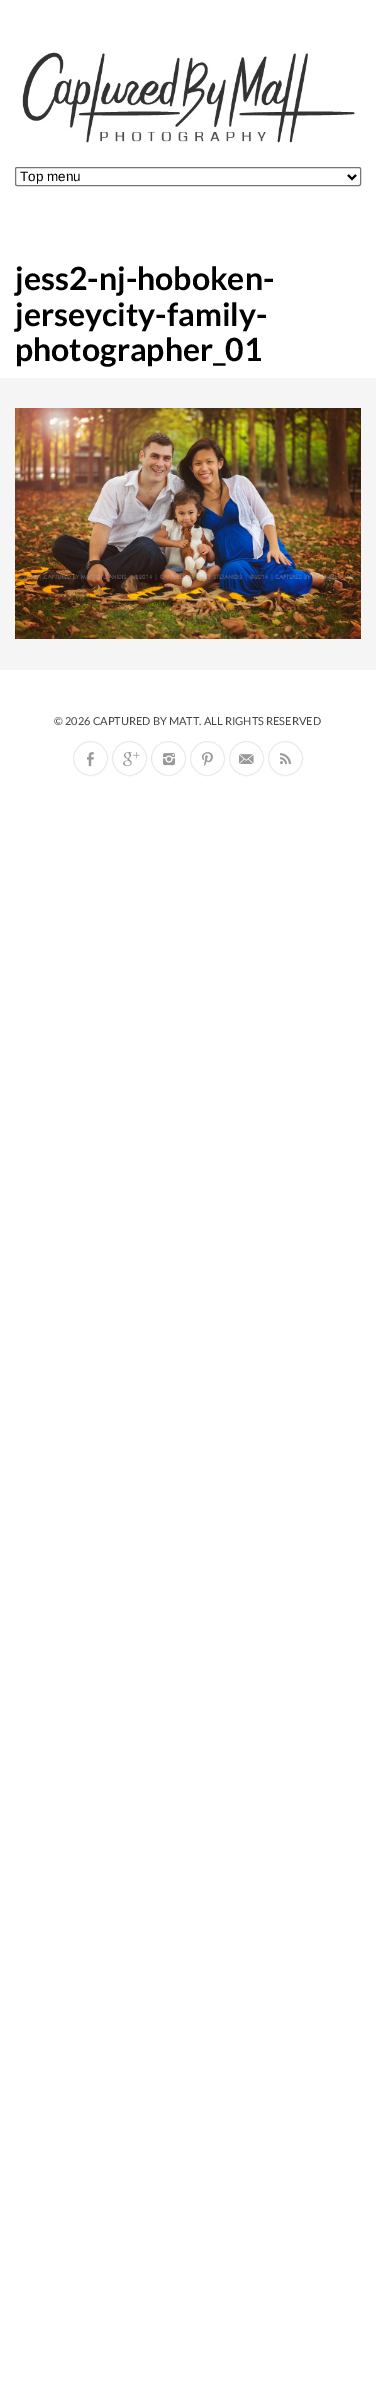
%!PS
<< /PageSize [376 2395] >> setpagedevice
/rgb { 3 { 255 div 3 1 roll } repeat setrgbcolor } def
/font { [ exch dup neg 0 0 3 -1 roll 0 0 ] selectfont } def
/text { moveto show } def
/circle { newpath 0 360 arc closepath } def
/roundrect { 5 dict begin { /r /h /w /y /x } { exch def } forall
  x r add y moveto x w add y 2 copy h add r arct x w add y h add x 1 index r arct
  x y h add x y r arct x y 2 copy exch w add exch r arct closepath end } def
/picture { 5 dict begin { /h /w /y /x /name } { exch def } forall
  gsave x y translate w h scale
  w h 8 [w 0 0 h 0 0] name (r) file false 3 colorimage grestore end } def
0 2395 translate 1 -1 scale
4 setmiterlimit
255 255 255 rgb
0 0 376 2395 rectfill
(img_01.rgb) 22 52 333 91 picture
118 118 118 rgb
15.5 167.5 345 18 1.5 roundrect stroke
0 0 0 rgb
2 setlinewidth
348 175 moveto 4 4 rlineto 4 -4 rlineto stroke
245 245 245 rgb
0 378 376 292 rectfill
(img_02.rgb) 15 408 346 231 picture
235 235 235 rgb
1 setlinewidth
90.5 758.5 17 circle stroke
(img_03.rgb) 87 752 7 15 picture
129.5 758.5 17 circle stroke
(img_04.rgb) 123 752 17 15 picture
168.5 758.5 17 circle stroke
(img_05.rgb) 163 753 12 13 picture
207.5 758.5 17 circle stroke
(img_06.rgb) 202 752 11 14 picture
246.5 758.5 17 circle stroke
(img_07.rgb) 239 754 15 10 picture
285.5 758.5 17 circle stroke
(img_08.rgb) 280 753 11 12 picture
/LiberationSans-Regular 13.5 font
0 0 0 rgb
(Top menu) 20 181 text
/Lato-Bold 32 font
(jess2-nj-hoboken-) 15 290 text
(jerseycity-family-) 15 326 text
(photographer_01) 15 361 text
/Lato-Regular 11 font
68 68 68 rgb
(© 2026 CAPTURED BY MATT. ALL RIGHTS RESERVED) 54 725 text
showpage
